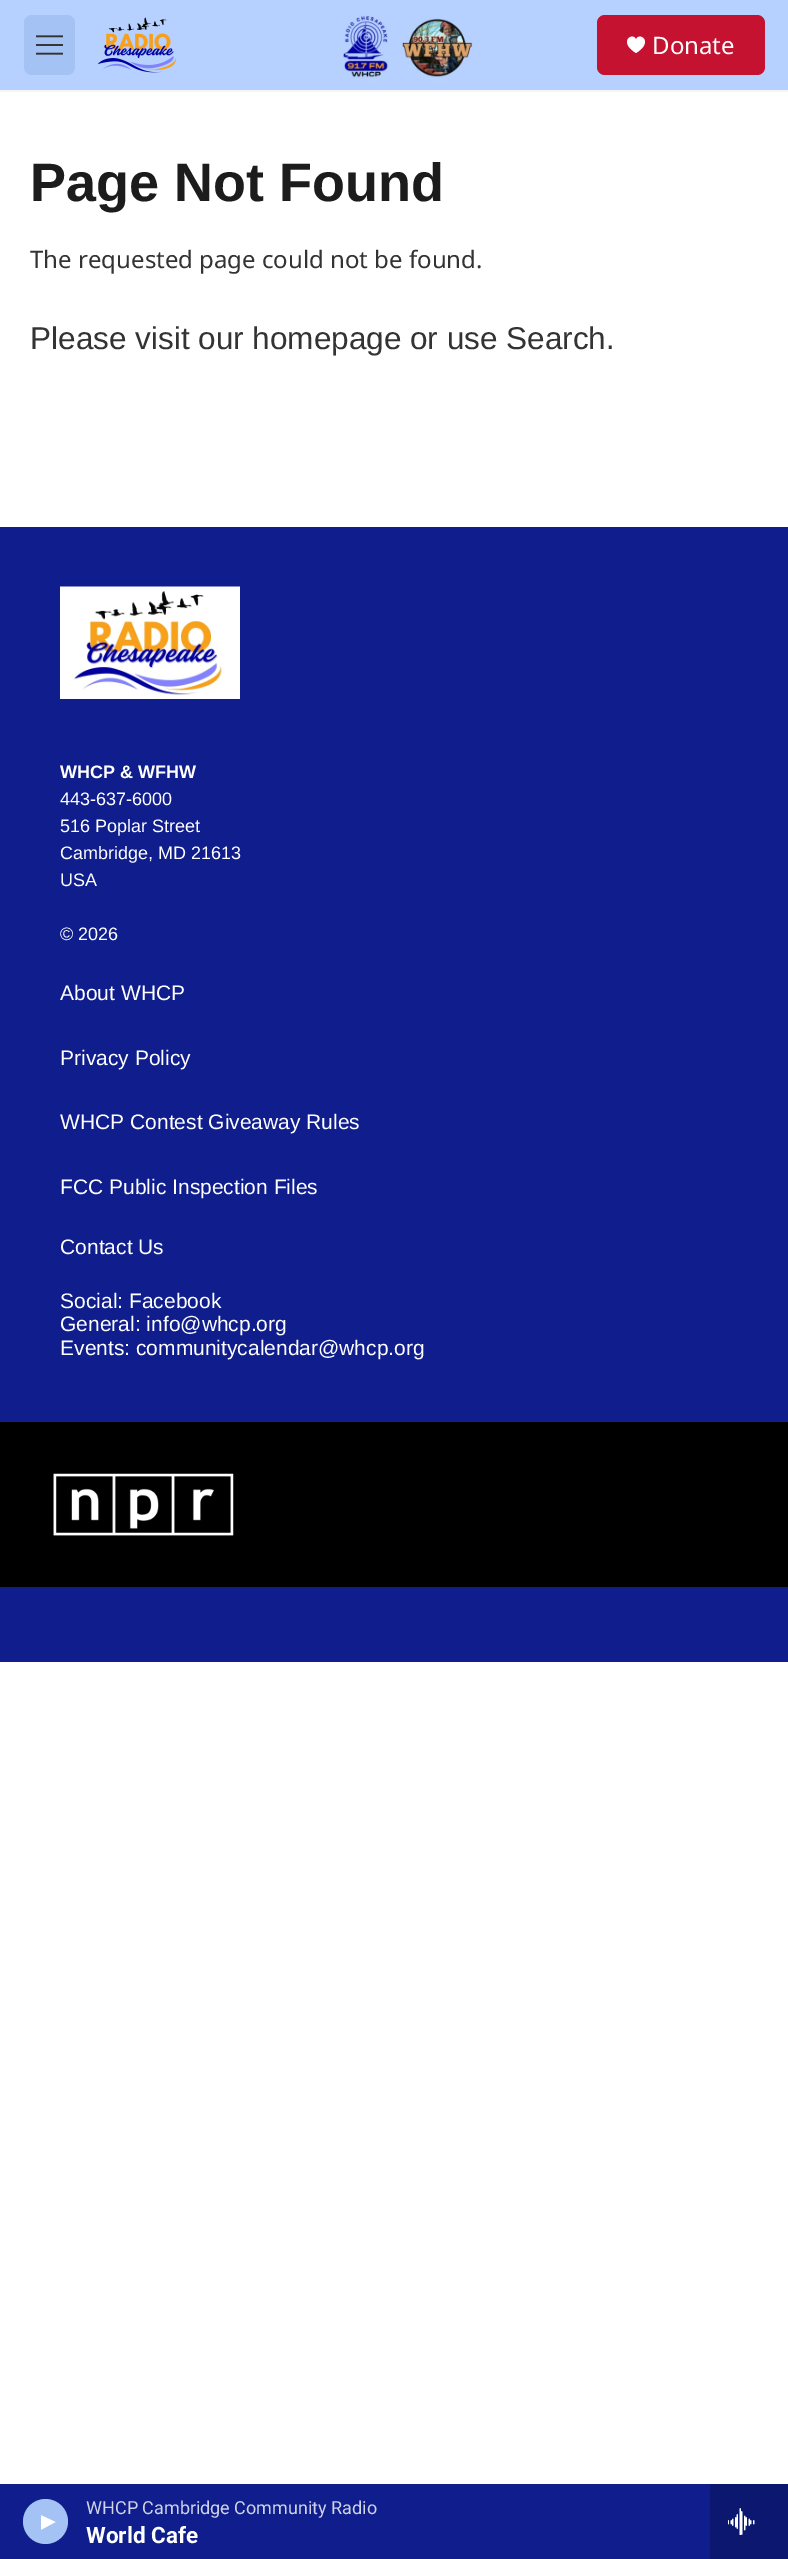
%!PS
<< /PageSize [788 2559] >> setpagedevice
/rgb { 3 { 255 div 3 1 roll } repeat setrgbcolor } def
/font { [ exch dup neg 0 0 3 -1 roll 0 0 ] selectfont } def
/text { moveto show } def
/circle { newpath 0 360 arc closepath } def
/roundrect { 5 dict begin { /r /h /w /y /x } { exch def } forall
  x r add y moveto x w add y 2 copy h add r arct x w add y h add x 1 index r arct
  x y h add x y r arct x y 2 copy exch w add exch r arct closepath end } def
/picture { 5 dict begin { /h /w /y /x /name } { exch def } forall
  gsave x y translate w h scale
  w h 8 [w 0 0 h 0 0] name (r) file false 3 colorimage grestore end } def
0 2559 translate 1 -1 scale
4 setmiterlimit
255 255 255 rgb
0 0 788 2559 rectfill
245 245 245 rgb
0 90 788 2 rectfill
(img_01.rgb) 0 0 788 90 picture
164 194 244 rgb
24 15 51 60 8 roundrect fill
(img_02.rgb) 36 35 27 20 picture
(img_03.rgb) 97 17 79 56 picture
196 18 48 rgb
597 15 168 60 8 roundrect fill
255 255 255 rgb
636 39.5 moveto -3 -8 -18.5 2 0 13.5 rcurveto 18.5 -11.5 3 -21.5 0 -13.5 rcurveto closepath fill
15 30 140 rgb
0 2484 710 75 rectfill
164 194 244 rgb
45.5 2521.5 22.5 circle fill
gsave
41 2514 15 17 rectclip
255 255 255 rgb
40.5 2515 moveto 15 7 rlineto -15 8 rlineto closepath fill
grestore
12 24 112 rgb
710 2484 78 75 rectfill
(img_04.rgb) 728 2508 27 27 picture
15 30 140 rgb
0 527 788 1135 rectfill
(img_05.rgb) 60 586 180 113 picture
0 0 0 rgb
0 1422 788 165 rectfill
(img_06.rgb) 53 1473 181 63 picture
/NotoSans-Regular 24 font
255 255 255 rgb
(Donate) 652 54 text
/Roboto-Regular 18 font
207 210 232 rgb
(WHCP Cambridge Community Radio) 86 2514 text
/Roboto-Bold 22.5 font
255 255 255 rgb
(World Cafe) 86 2543 text
/LiberationSans-Bold 54 font
28 28 28 rgb
(Page Not Found) 30 201 text
/NotoSans-Regular 24 font
51 51 51 rgb
(The requested page could not be found.) 30 268 text
/LiberationSans-Regular 31.5 font
(Please visit our homepage or use Search.) 30 349 text
/LiberationSans-Bold 18 font
255 255 255 rgb
(WHCP & WFHW) 60 778 text
/LiberationSans-Regular 18 font
(443-637-6000) 60 805 text
(516 Poplar Street) 60 832 text
(Cambridge, MD 21613) 60 859 text
(USA) 60 886 text
(© 2026) 60 940 text
/LiberationSans-Regular 21 font
(About WHCP) 60 1000 text
(Privacy Policy) 60 1065 text
(WHCP Contest Giveaway Rules) 60 1129 text
(FCC Public Inspection Files) 60 1194 text
(Contact Us) 60 1254 text
(Social: Facebook) 60 1308 text
(General: info@whcp.org) 60 1331 text
(Events: communitycalendar@whcp.org) 60 1355 text
showpage
